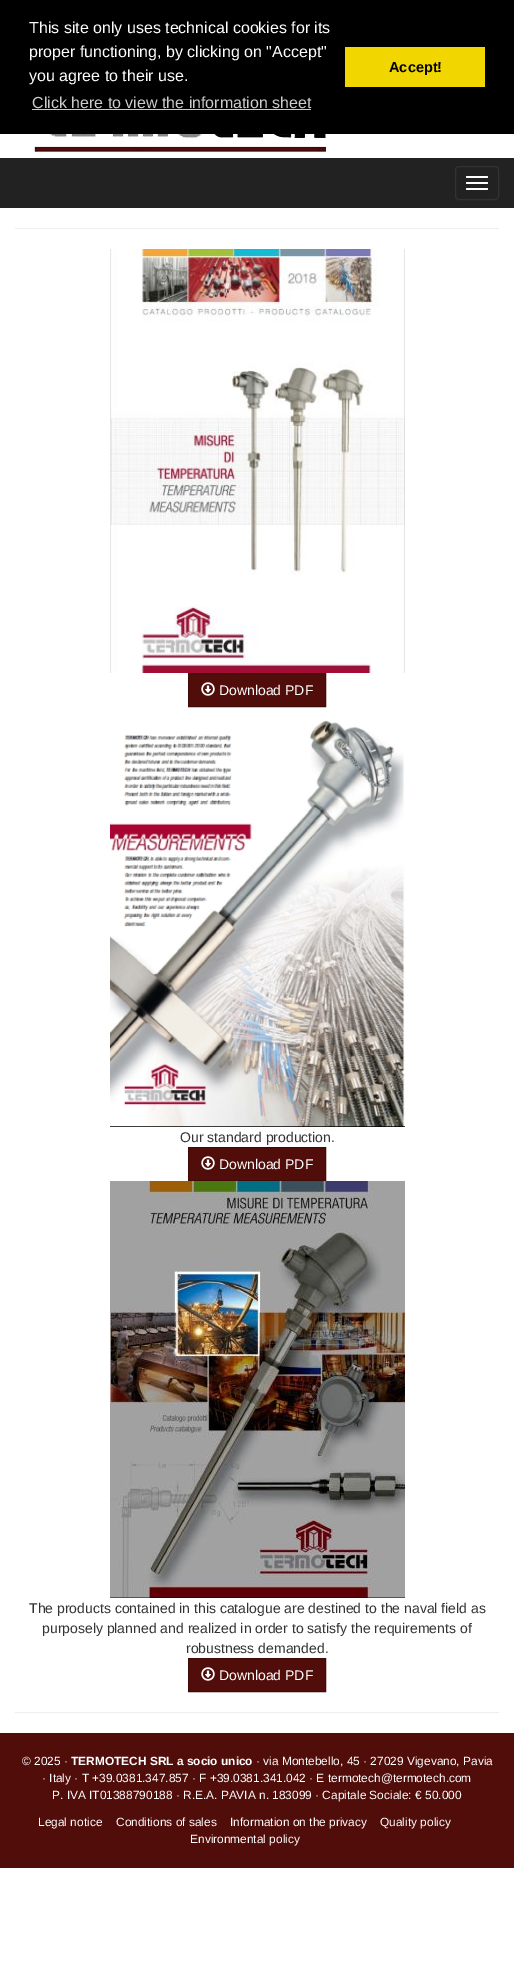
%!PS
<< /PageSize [514 1980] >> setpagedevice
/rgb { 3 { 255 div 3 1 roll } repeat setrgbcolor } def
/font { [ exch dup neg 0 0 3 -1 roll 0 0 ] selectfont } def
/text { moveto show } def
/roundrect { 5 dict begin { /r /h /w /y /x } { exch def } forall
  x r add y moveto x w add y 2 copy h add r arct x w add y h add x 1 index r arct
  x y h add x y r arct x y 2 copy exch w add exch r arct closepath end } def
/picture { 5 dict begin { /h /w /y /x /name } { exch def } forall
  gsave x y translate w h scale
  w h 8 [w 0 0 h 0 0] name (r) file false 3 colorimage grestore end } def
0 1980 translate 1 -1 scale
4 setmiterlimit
255 255 255 rgb
0 0 514 1980 rectfill
0 0 0 rgb
0 0 514 134 rectfill
204 204 204 rgb
32 109 279 1 rectfill
241 214 0 rgb
345 47 140 40 rectfill
(img_01.rgb) 34 134 292 18 picture
34 34 34 rgb
0 158 514 50 rectfill
51 51 51 rgb
455.5 166.5 43 33 3.5 roundrect stroke
255 255 255 rgb
466 176 22 2 1 roundrect fill
466 182 22 2 1 roundrect fill
466 188 22 2 1 roundrect fill
238 238 238 rgb
15 228 484 1 rectfill
(img_02.rgb) 110 249 295 424 picture
81 13 10 rgb
188.5 673.5 moveto 137 0 rlineto 0 33 rlineto -137 0 rlineto closepath gsave fill grestore
65 10 7 rgb
stroke
(img_03.rgb) 201 682 14 14 picture
(img_04.rgb) 110 720 295 407 picture
81 13 10 rgb
188.5 1147.5 moveto 137 0 rlineto 0 33 rlineto -137 0 rlineto closepath gsave fill grestore
65 10 7 rgb
stroke
(img_03.rgb) 201 1156 14 14 picture
(img_05.rgb) 110 1181 295 417 picture
81 13 10 rgb
188.5 1658.5 moveto 137 0 rlineto 0 33 rlineto -137 0 rlineto closepath gsave fill grestore
65 10 7 rgb
stroke
(img_03.rgb) 201 1667 14 14 picture
238 238 238 rgb
15 1712 484 1 rectfill
81 13 10 rgb
0 1733 514 135 rectfill
/LiberationSans-Regular 16 font
255 255 255 rgb
(This site only uses technical cookies for its) 29 33 text
(proper functioning, by clicking on "Accept") 29 57 text
(you agree to their use.) 29 81 text
204 204 204 rgb
(Click here to view the information sheet) 32 108 text
/LiberationSans-Bold 14.5 font
0 0 0 rgb
(Accept!) 389 72 text
/LiberationSans-Regular 14 font
255 255 255 rgb
(Download PDF) 219 695 text
51 51 51 rgb
(Our standard production.) 180 1142 text
255 255 255 rgb
(Download PDF) 219 1169 text
51 51 51 rgb
(The products contained in this catalogue are destined to the naval field as) 29 1613 text
(purposely planned and realized in order to satisfy the requirements of) 42 1633 text
(robustness demanded.) 186 1653 text
255 255 255 rgb
(Download PDF) 219 1680 text
/LiberationSans-Regular 11.9 font
(© 2025 ·) 22 1765 text
/LiberationSans-Bold 11.9 font
(TERMOTECH SRL a socio unico) 71 1765 text
/LiberationSans-Regular 11.9 font
(· via Montebello, 45 · 27029 Vigevano, Pavia) 256 1765 text
(· Italy · T +39.0381.347.857 · F +39.0381.341.042 · E termotech@termotech.com) 42 1782 text
(P. IVA IT01388790188 · R.E.A. PAVIA n. 183099 · Capitale Sociale: € 50.000) 52 1799 text
(Legal notice) 38 1826 text
(Conditions of sales) 116 1826 text
(Information on the privacy) 230 1826 text
(Quality policy) 380 1826 text
(Environmental policy) 190 1843 text
showpage
